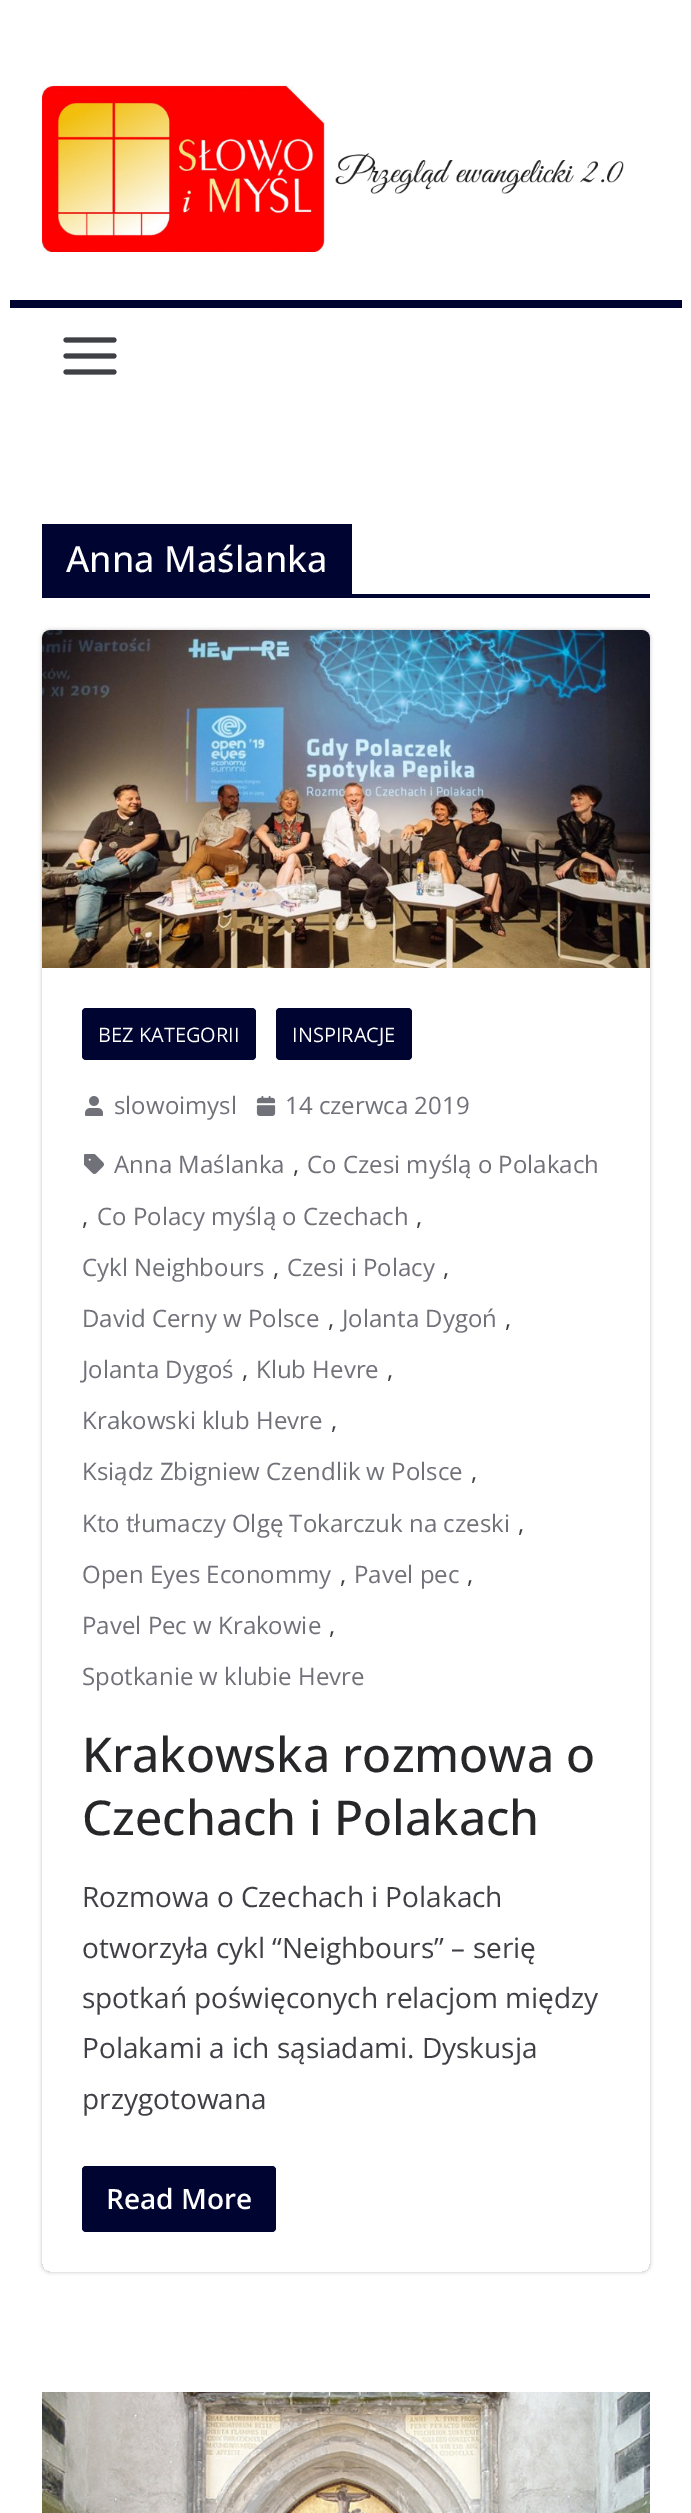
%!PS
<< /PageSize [691 2513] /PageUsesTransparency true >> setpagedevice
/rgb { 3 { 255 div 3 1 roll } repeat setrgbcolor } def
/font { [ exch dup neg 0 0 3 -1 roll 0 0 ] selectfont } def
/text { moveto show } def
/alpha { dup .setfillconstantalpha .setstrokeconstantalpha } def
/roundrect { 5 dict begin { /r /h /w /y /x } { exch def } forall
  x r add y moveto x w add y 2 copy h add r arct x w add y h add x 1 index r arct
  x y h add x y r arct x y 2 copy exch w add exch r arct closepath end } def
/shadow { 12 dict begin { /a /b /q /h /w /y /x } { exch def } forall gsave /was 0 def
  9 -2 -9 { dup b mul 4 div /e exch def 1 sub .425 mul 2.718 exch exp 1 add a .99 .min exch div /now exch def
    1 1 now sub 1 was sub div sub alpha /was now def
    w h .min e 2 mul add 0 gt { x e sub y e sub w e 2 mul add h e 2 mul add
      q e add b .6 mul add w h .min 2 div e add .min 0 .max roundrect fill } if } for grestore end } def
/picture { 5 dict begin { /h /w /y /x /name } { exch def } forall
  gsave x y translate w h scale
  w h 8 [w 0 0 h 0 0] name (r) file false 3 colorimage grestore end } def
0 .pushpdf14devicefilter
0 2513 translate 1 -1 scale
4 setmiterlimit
255 255 255 rgb
0 0 691 2513 rectfill
(img_01.rgb) 42 85 582 167 picture
0 4 48 rgb
10 300 672 8 rectfill
(img_02.rgb) 63 337 54 38 picture
42 594 608 4 rectfill
42 524 310 70 rectfill
gsave
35 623 moveto 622 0 rlineto 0 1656 rlineto -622 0 rlineto closepath 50 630 moveto 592 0 rlineto 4.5 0 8 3.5 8 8 rcurveto 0 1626 rlineto 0 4.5 -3.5 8 -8 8 rcurveto -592 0 rlineto -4.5 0 -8 -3.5 -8 -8 rcurveto 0 -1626 rlineto 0 -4.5 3.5 -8 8 -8 rcurveto closepath eoclip newpath
0 0 0 rgb
42 630 608 1642 8 2 0.24 shadow
grestore
(img_03.rgb) 42 630 608 338 picture
82 1008 174 52 4 roundrect fill
276 1008 136 52 4 roundrect fill
(img_04.rgb) 85 1096 18 20 picture
(img_05.rgb) 256 1096 20 20 picture
(img_06.rgb) 84 1154 20 20 picture
82 2166 194 66 4 roundrect fill
(img_07.rgb) 42 2392 608 121 picture
/OpenSans-Medium 36 font
255 255 255 rgb
(Anna Maślanka) 66 572 text
/OpenSans-Regular 20 font
(BEZ KATEGORII) 98 1042 text
(INSPIRACJE) 292 1042 text
/OpenSans-Regular 24 font
113 113 122 rgb
(slowoimysl) 114 1114 text
(14 czerwca 2019) 285 1114 text
(Anna Maślanka) 114 1173 text
63 63 70 rgb
(,) 293 1173 text
113 113 122 rgb
(Co Czesi myślą o Polakach) 307 1173 text
63 63 70 rgb
(,) 82 1225 text
113 113 122 rgb
(Co Polacy myślą o Czechach) 97 1225 text
63 63 70 rgb
(,) 416 1225 text
113 113 122 rgb
(Cykl Neighbours) 82 1276 text
63 63 70 rgb
(,) 273 1276 text
113 113 122 rgb
(Czesi i Polacy) 287 1276 text
63 63 70 rgb
(,) 443 1276 text
113 113 122 rgb
(David Cerny w Polsce) 82 1327 text
63 63 70 rgb
(,) 328 1327 text
113 113 122 rgb
(Jolanta Dygoń) 342 1327 text
63 63 70 rgb
(,) 505 1327 text
113 113 122 rgb
(Jolanta Dygoś) 82 1378 text
63 63 70 rgb
(,) 242 1378 text
113 113 122 rgb
(Klub Hevre) 256 1378 text
63 63 70 rgb
(,) 387 1378 text
113 113 122 rgb
(Krakowski klub Hevre) 82 1429 text
63 63 70 rgb
(,) 331 1429 text
113 113 122 rgb
(Ksiądz Zbigniew Czendlik w Polsce) 82 1480 text
63 63 70 rgb
(,) 471 1480 text
113 113 122 rgb
(Kto tłumaczy Olgę Tokarczuk na czeski) 82 1532 text
63 63 70 rgb
(,) 518 1532 text
113 113 122 rgb
(Open Eyes Econommy) 82 1583 text
63 63 70 rgb
(,) 340 1583 text
113 113 122 rgb
(Pavel pec) 354 1583 text
63 63 70 rgb
(,) 467 1583 text
113 113 122 rgb
(Pavel Pec w Krakowie) 82 1634 text
63 63 70 rgb
(,) 329 1634 text
113 113 122 rgb
(Spotkanie w klubie Hevre) 82 1685 text
/OpenSans-Medium 48 font
39 39 42 rgb
(Krakowska rozmowa o) 82 1772 text
(Czechach i Polakach) 82 1835 text
/OpenSans-Regular 28 font
63 63 70 rgb
(Rozmowa o Czechach i Polakach) 82 1907 text
(otworzyła cykl “Neighbours” – serię) 82 1958 text
(spotkań poświęconych relacjom między) 82 2008 text
(Polakami a ich sąsiadami. Dyskusja) 82 2058 text
(przygotowana) 82 2109 text
/OpenSans-SemiBold 28 font
255 255 255 rgb
(Read More) 106 2209 text
.poppdf14devicefilter showpage
